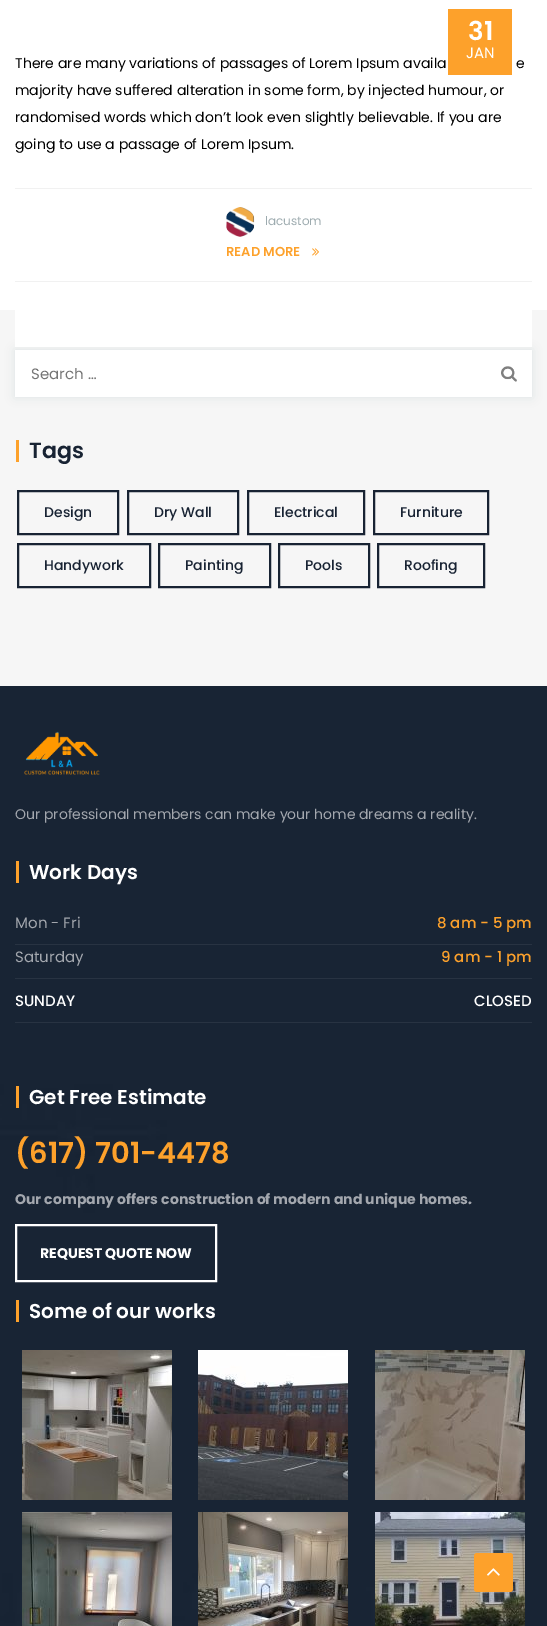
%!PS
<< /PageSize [547 1626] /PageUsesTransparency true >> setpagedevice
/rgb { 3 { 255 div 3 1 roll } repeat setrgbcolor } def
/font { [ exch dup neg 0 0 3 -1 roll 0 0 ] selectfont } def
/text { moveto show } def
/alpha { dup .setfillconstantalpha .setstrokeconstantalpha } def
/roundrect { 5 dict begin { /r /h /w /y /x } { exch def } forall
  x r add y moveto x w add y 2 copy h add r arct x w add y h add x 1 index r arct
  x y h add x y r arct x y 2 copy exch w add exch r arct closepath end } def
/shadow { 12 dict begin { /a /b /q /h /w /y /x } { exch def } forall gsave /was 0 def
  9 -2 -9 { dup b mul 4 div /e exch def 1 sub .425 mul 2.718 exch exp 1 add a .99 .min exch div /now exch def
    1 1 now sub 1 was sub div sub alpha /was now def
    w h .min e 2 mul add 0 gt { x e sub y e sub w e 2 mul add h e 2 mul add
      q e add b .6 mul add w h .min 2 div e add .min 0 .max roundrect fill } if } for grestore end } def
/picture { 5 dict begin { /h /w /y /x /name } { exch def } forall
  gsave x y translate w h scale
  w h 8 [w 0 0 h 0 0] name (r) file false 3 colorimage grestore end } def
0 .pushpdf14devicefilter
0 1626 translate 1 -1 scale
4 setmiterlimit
255 255 255 rgb
0 0 547 1626 rectfill
246 246 246 rgb
0 310 547 376 rectfill
3 59 74 rgb
15 350 517 47 0 5 0.1 shadow
255 255 255 rgb
15 310 517 37 rectfill
253 161 43 rgb
448 9 64 66 rectfill
241 241 241 rgb
15 188 517 1 rectfill
15 281 517 1 rectfill
(img_01.rgb) 226 207 29 30 picture
(img_02.rgb) 312 248 7 8 picture
255 255 255 rgb
15 350 517 47 rectfill
(img_03.rgb) 501 366 16 16 picture
253 161 43 rgb
16 440 3 22 rectfill
24 35 51 rgb
2 setlinewidth
18 491 100 43 rectstroke
128 491 110 43 rectstroke
248 491 116 43 rectstroke
374 491 114 43 rectstroke
18 544 132 43 rectstroke
159 544 111 43 rectstroke
279 544 90 43 rectstroke
378 544 106 43 rectstroke
(img_04.rgb) 0 686 547 940 picture
(img_05.rgb) 24 731 76 44 picture
253 161 43 rgb
16 861 3 22 rectfill
40 51 66 rgb
15 944 517 1 rectfill
15 978 517 1 rectfill
15 1022 517 1 rectfill
253 161 43 rgb
16 1086 3 22 rectfill
255 255 255 rgb
16 1225 200 56 rectstroke
253 161 43 rgb
16 1300 3 22 rectfill
(img_06.rgb) 22 1350 150 150 picture
(img_07.rgb) 198 1350 150 150 picture
(img_08.rgb) 375 1350 150 150 picture
(img_09.rgb) 22 1512 150 114 picture
(img_10.rgb) 198 1512 150 114 picture
(img_11.rgb) 375 1512 150 114 picture
474 1553 39 39 3 roundrect fill
(img_12.rgb) 487 1568 13 8 picture
/Poppins-SemiBold 26 font
255 255 255 rgb
(31) 468 40 text
/Poppins-Regular 15 font
(JAN) 466 58 text
/Poppins-Regular 14 font
0 0 0 rgb
(There are many variations of passages of Lorem Ipsum availa) 15 68 text
(e) 516 68 text
(majority have suffered alteration in some form, by injected humour, or) 15 95 text
(randomised words which don’t look even slightly believable. If you are) 15 122 text
(going to use a passage of Lorem Ipsum.) 15 149 text
/Poppins-Regular 12 font
157 171 175 rgb
(lacustom) 265 225 text
/Poppins-SemiBold 13 font
253 161 43 rgb
(READ MORE) 226 256 text
/Poppins-Regular 15 font
117 117 117 rgb
(Search …) 31 379 text
/Poppins-SemiBold 22 font
24 35 51 rgb
(Tags) 29 458 text
/Poppins-Medium 14 font
(Design) 44 517 text
(Dry Wall) 154 517 text
(Electrical) 274 517 text
(Furniture) 400 517 text
(Handywork) 44 570 text
(Painting) 185 570 text
(Pools) 305 570 text
(Roofing) 404 570 text
/Poppins-Regular 14 font
163 167 174 rgb
(Our professional members can make your home dreams a reality.) 15 819 text
/Poppins-SemiBold 20 font
255 255 255 rgb
(Work Days) 29 879 text
/Poppins-Regular 15 font
163 167 174 rgb
(Mon - Fri) 15 928 text
/Poppins-Medium 15 font
253 161 43 rgb
(8 am - 5 pm) 437 928 text
/Poppins-Regular 15 font
163 167 174 rgb
(Saturday) 15 962 text
/Poppins-Medium 15 font
253 161 43 rgb
(9 am - 1 pm) 441 962 text
255 255 255 rgb
(SUNDAY) 15 1006 text
(CLOSED) 474 1006 text
/Poppins-SemiBold 20 font
(Get Free Estimate) 29 1104 text
/Poppins-SemiBold 29 font
253 161 43 rgb
(\(617\) 701-4478) 15 1163 text
/Poppins-Bold 14 font
163 167 174 rgb
(Our company offers construction of modern and unique homes.) 15 1204 text
255 255 255 rgb
(REQUEST QUOTE NOW) 40 1258 text
/Poppins-SemiBold 20 font
(Some of our works) 29 1318 text
.poppdf14devicefilter showpage
